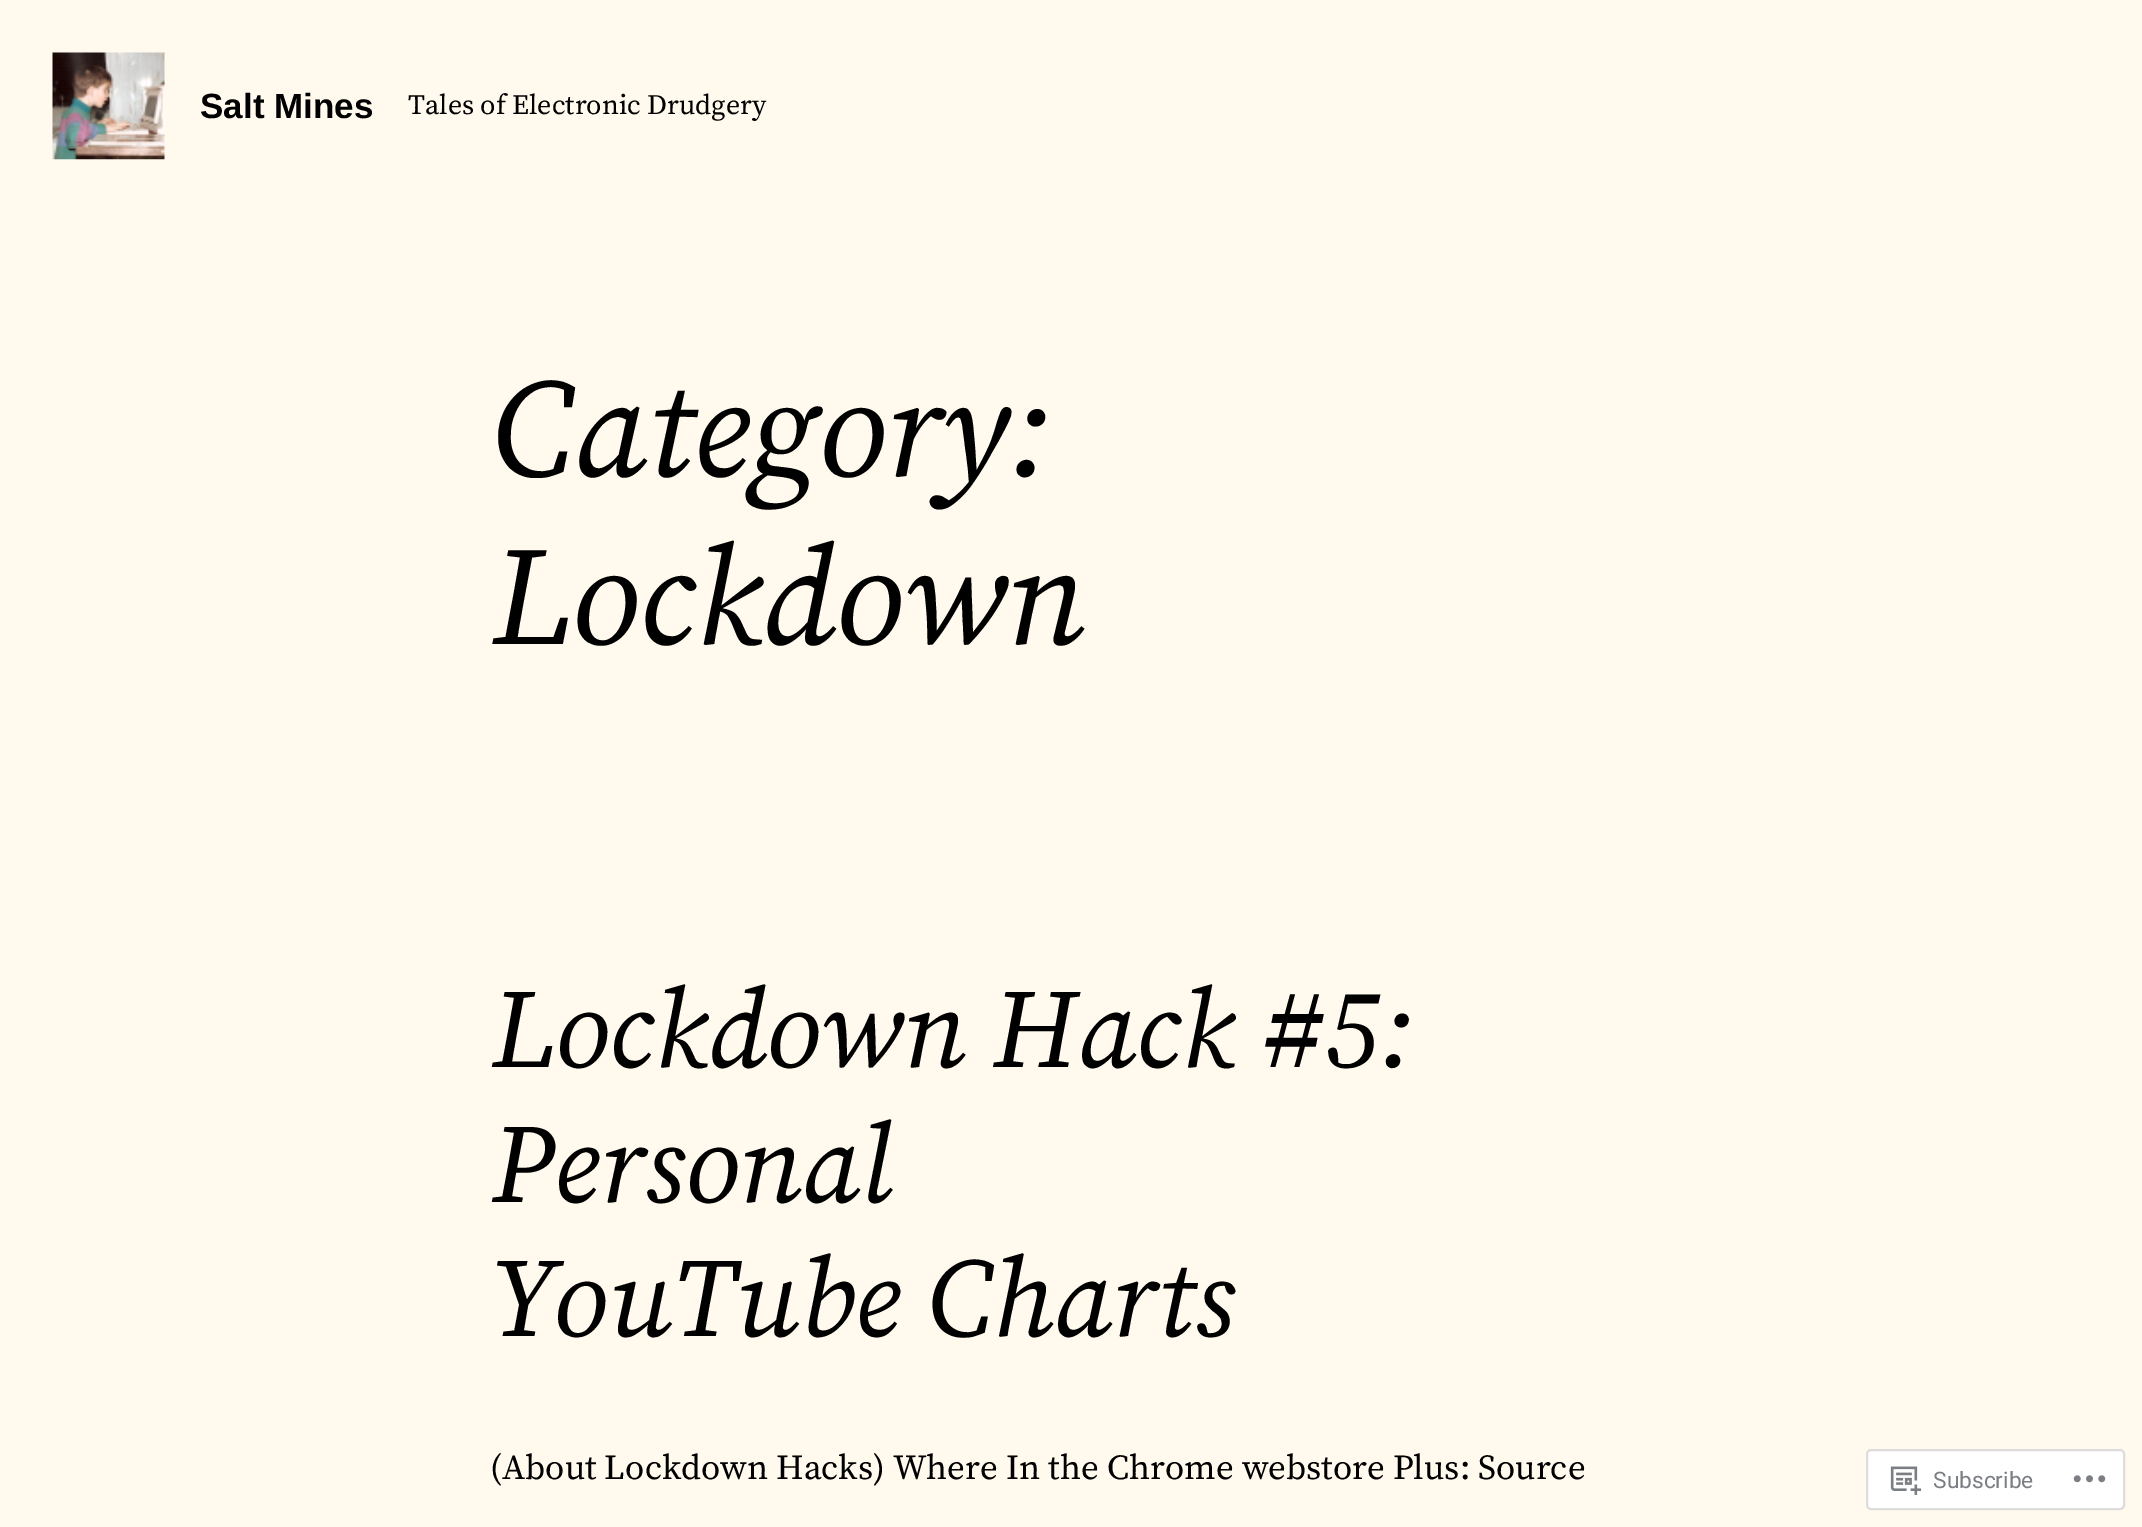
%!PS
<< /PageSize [2142 1527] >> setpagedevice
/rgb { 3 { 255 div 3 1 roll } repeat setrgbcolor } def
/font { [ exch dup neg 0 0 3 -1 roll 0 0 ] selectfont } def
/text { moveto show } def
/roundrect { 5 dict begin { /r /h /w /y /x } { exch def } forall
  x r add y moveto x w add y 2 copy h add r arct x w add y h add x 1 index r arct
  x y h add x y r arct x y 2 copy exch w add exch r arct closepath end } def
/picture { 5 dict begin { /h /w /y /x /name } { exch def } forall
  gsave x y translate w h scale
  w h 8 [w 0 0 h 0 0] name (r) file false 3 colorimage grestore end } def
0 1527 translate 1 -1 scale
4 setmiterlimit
255 250 237 rgb
0 0 2142 1527 rectfill
(img_01.rgb) 52 52 113 108 picture
255 255 255 rgb
1867 1450 257 59 4 roundrect gsave fill grestore
221 221 222 rgb
2 setlinewidth
stroke
(img_02.rgb) 1890 1466 32 29 picture
(img_03.rgb) 2073 1475 33 8 picture
/LiberationSans-Bold 35 font
0 0 0 rgb
(Salt Mines) 200 118 text
/SourceSerifPro-Regular 28 font
(Tales of Electronic Drudgery) 408 114 text
/SourceSerifPro-Italic 140 font
(Category:) 490 476 text
(Lockdown) 490 644 text
/SourceSerifPro-Italic 112 font
(Lockdown Hack #5:) 490 1067 text
(Personal) 490 1202 text
(YouTube Charts) 490 1336 text
/SourceSerifPro-Regular 35 font
(\(About Lockdown Hacks\) Where In the Chrome webstore Plus: Source) 490 1479 text
/Roboto-Regular 22.75 font
123 127 132 rgb
(Subscribe) 1933 1488 text
showpage
